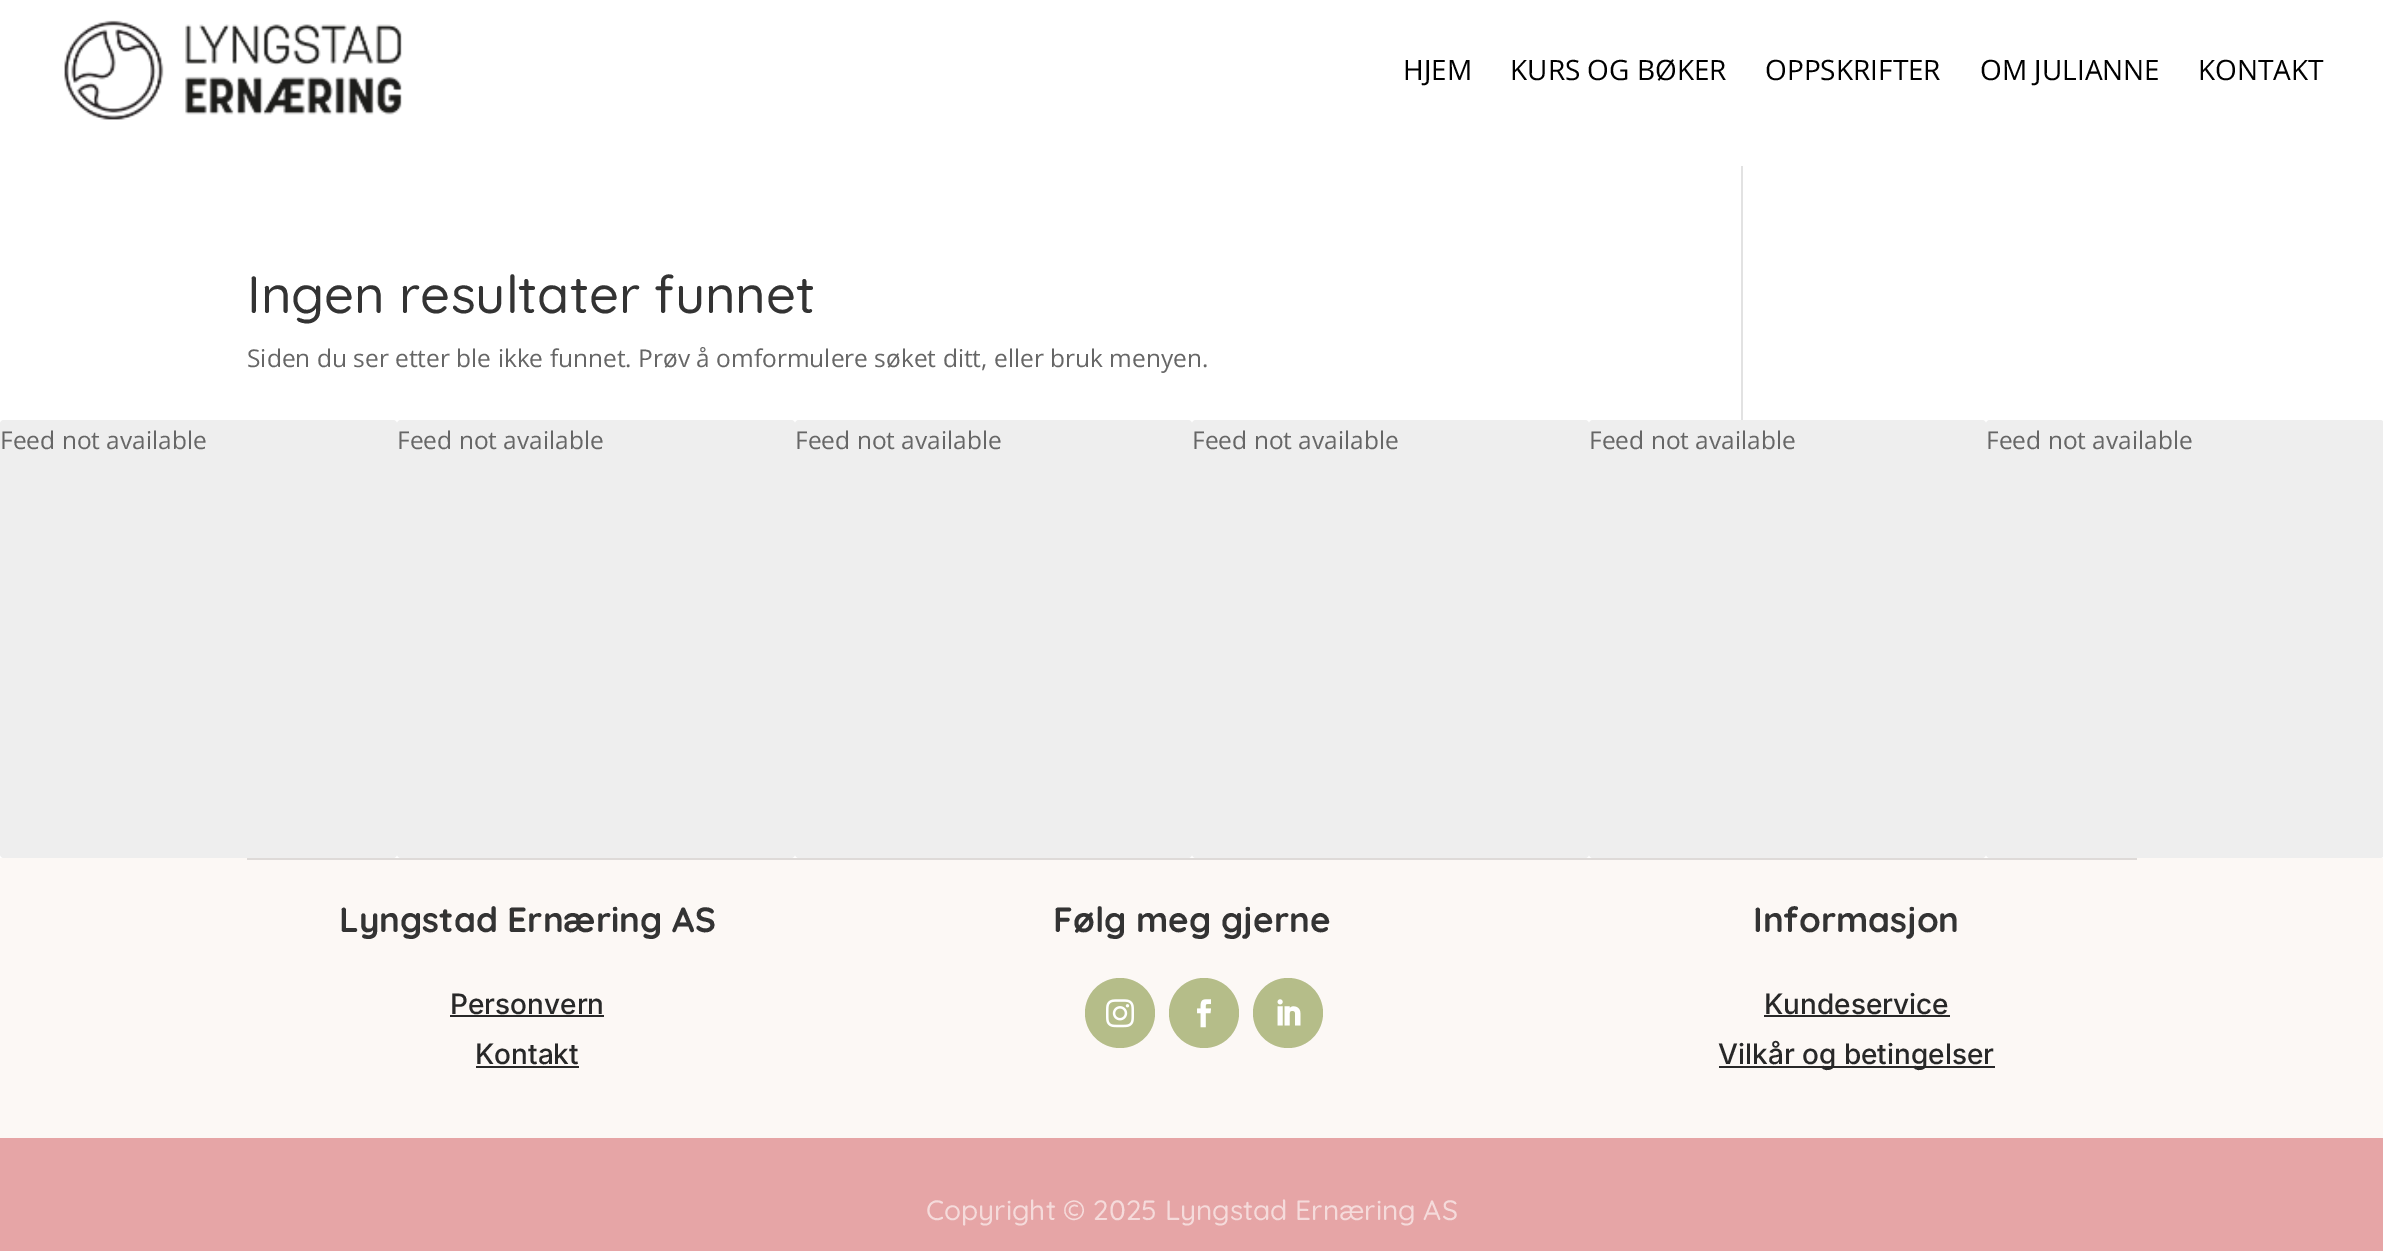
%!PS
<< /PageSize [2383 1251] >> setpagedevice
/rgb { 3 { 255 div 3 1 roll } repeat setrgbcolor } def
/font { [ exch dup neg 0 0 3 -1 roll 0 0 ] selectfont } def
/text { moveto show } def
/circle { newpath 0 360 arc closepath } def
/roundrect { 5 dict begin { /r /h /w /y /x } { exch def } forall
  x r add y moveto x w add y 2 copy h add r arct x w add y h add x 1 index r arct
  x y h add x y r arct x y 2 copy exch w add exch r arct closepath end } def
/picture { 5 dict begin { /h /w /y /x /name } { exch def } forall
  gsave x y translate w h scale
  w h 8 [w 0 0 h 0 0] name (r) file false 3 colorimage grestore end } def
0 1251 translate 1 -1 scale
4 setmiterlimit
255 255 255 rgb
0 0 2383 1251 rectfill
(img_01.rgb) 64 20 338 100 picture
226 226 226 rgb
1741 166 2 254 rectfill
252 248 245 rgb
0 858 2383 280 rectfill
238 238 238 rgb
0 420 397 438 4 roundrect fill
397 420 398 438 4 roundrect fill
795 420 397 438 4 roundrect fill
1192 420 397 438 4 roundrect fill
1589 420 397 438 4 roundrect fill
1986 420 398 438 4 roundrect fill
222 218 216 rgb
247 858 1890 2 rectfill
40 40 40 rgb
450 1015 154 2 rectfill
476 1066 103 2 rectfill
181 189 137 rgb
1120 1013 35 circle fill
(img_02.rgb) 1106 999 28 29 picture
1204 1013 35 circle fill
(img_03.rgb) 1197 999 14 29 picture
1288 1013 35 circle fill
(img_04.rgb) 1277 999 24 27 picture
40 40 40 rgb
1764 1015 186 2 rectfill
1719 1066 276 2 rectfill
230 165 166 rgb
0 1138 2383 113 rectfill
/OpenSans-Regular 28 font
0 0 0 rgb
(HJEM) 1403 80 text
(KURS OG BØKER) 1510 80 text
(OPPSKRIFTER) 1765 80 text
(OM JULIANNE) 1980 80 text
(KONTAKT) 2198 80 text
/Quicksand-Light 52.5 font
51 51 51 rgb
(Ingen resultater funnet) 247 313 text
/OpenSans-Regular 24.5 font
102 102 102 rgb
(Siden du ser etter ble ikke funnet. Prøv å omformulere søket ditt, eller bruk menyen.) 247 367 text
(Feed not available) 0 449 text
(Feed not available) 397 449 text
(Feed not available) 795 449 text
(Feed not available) 1192 449 text
(Feed not available) 1589 449 text
(Feed not available) 1986 449 text
/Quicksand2-Light 35 font
51 51 51 rgb
(Lyngstad Ernæring AS) 339 932 text
/Inter-Medium 28 font
40 40 40 rgb
(Personvern) 450 1014 text
(Kontakt) 475 1064 text
/Quicksand2-Light 35 font
51 51 51 rgb
(Følg meg gjerne) 1053 932 text
(Informasjon) 1753 932 text
/Inter-Medium 28 font
40 40 40 rgb
(Kundeservice) 1764 1014 text
(Vilkår og betingelser) 1718 1064 text
/Quicksand-Light 28 font
245 219 219 rgb
(Copyright © 2025 Lyngstad Ernæring AS) 926 1220 text
showpage
